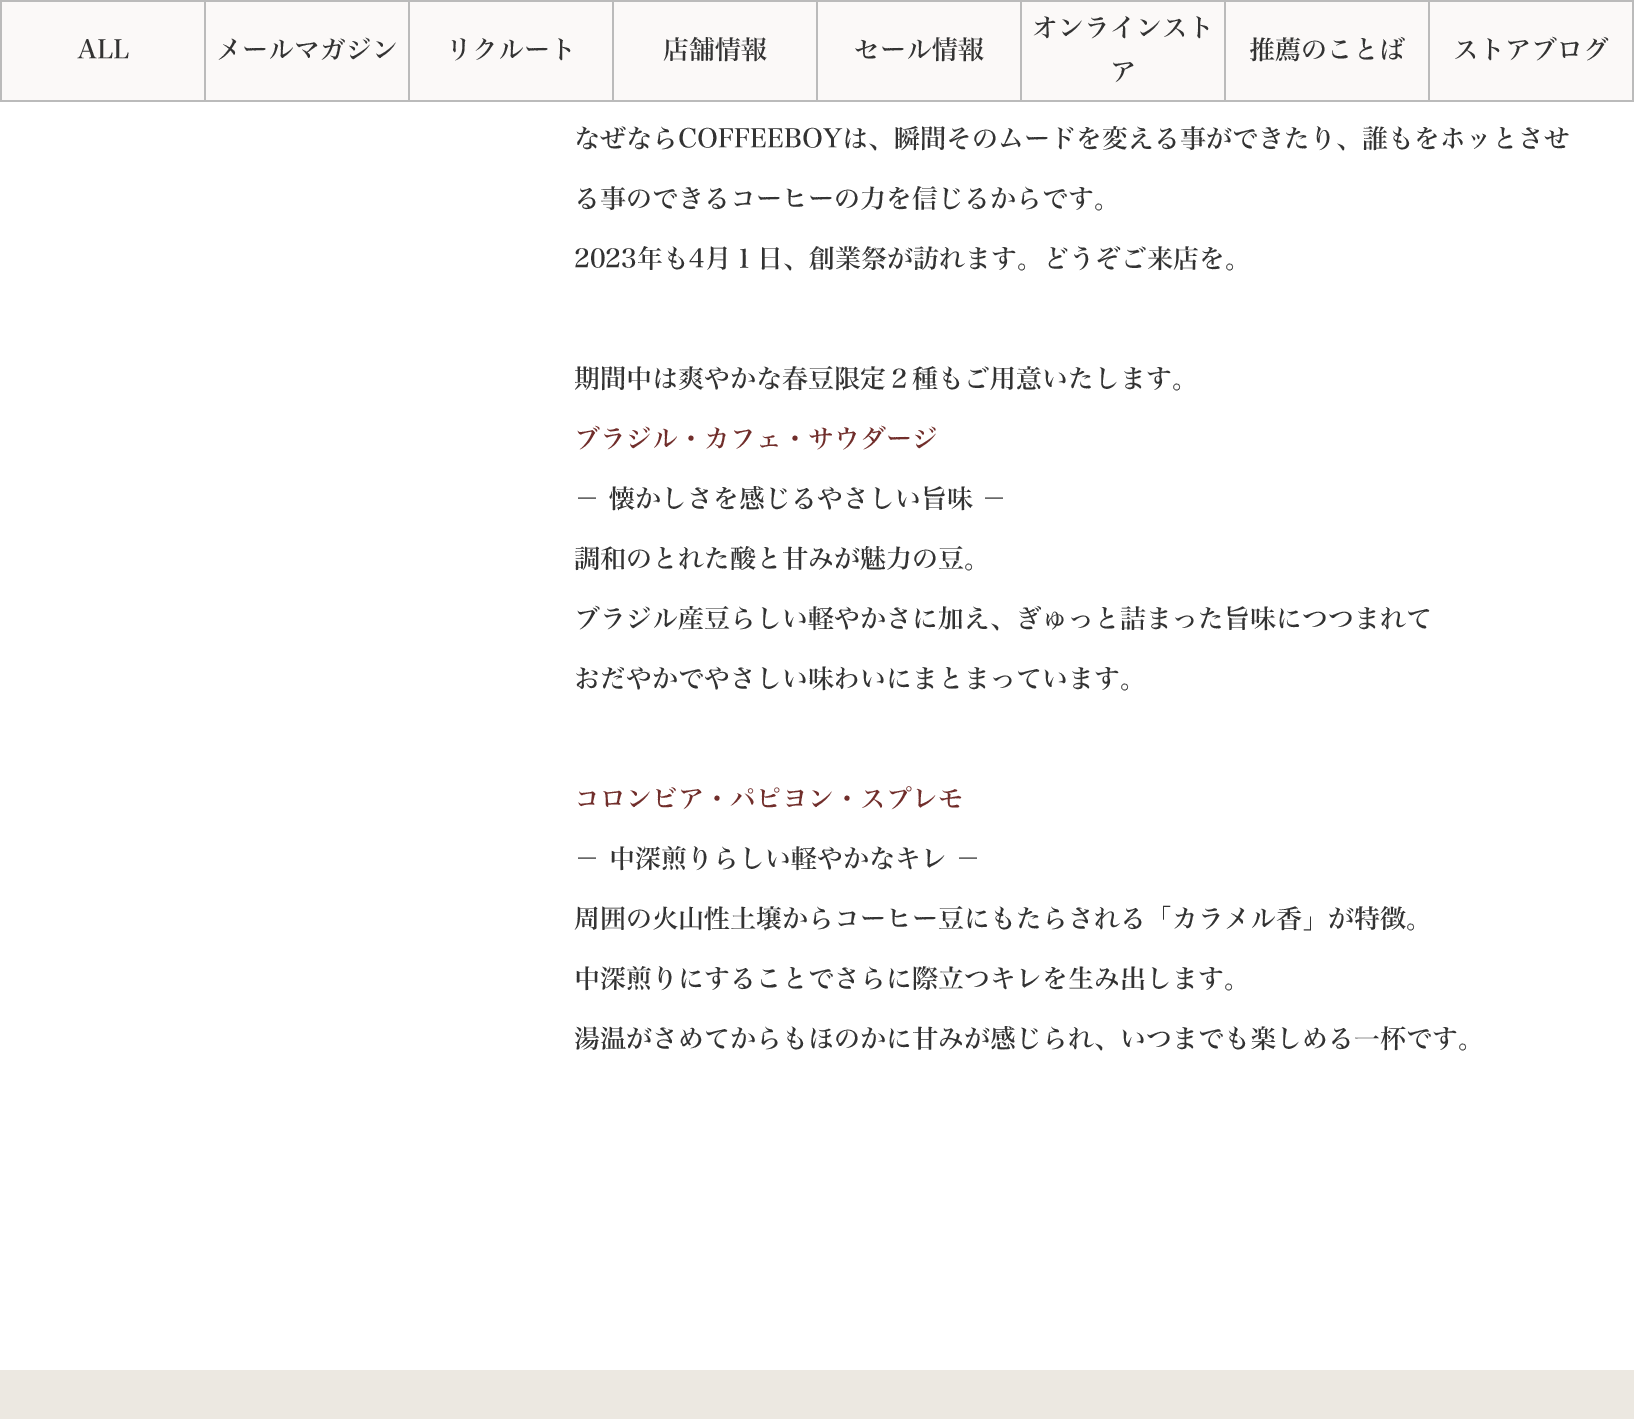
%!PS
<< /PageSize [1634 1419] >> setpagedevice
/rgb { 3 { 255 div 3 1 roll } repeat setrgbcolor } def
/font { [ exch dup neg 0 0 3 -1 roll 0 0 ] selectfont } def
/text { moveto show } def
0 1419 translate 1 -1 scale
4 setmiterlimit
255 255 255 rgb
0 0 1634 1419 rectfill
187 187 187 rgb
0 0 1634 2 rectfill
1632 2 2 100 rectfill
251 249 248 rgb
2 2 202 98 rectfill
187 187 187 rgb
0 2 2 100 rectfill
2 100 202 2 rectfill
251 249 248 rgb
206 2 202 98 rectfill
187 187 187 rgb
204 2 2 100 rectfill
206 100 202 2 rectfill
251 249 248 rgb
410 2 202 98 rectfill
187 187 187 rgb
408 2 2 100 rectfill
410 100 202 2 rectfill
251 249 248 rgb
614 2 202 98 rectfill
187 187 187 rgb
612 2 2 100 rectfill
614 100 202 2 rectfill
251 249 248 rgb
818 2 202 98 rectfill
187 187 187 rgb
816 2 2 100 rectfill
818 100 202 2 rectfill
251 249 248 rgb
1022 2 202 98 rectfill
187 187 187 rgb
1020 2 2 100 rectfill
1022 100 202 2 rectfill
251 249 248 rgb
1226 2 202 98 rectfill
187 187 187 rgb
1224 2 2 100 rectfill
1226 100 202 2 rectfill
251 249 248 rgb
1430 2 202 98 rectfill
187 187 187 rgb
1428 2 2 100 rectfill
1430 100 202 2 rectfill
236 232 225 rgb
0 1370 1634 49 rectfill
/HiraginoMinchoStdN-Medium 26 font
51 51 51 rgb
(ALL) 77 59 text
(メールマガジン) 216 59 text
(リクルート) 446 59 text
(店舗情報) 663 59 text
(セール情報) 854 59 text
(オンラインスト) 1032 37 text
(ア) 1110 81 text
(推薦のことば) 1249 59 text
(ストアブログ) 1453 59 text
(なぜならCOFFEEBOYは、瞬間そのムードを変える事ができたり、誰もをホッとさせ) 574 148 text
(る事のできるコーヒーの力を信じるからです。) 574 208 text
(2023年も4月１日、創業祭が訪れます。どうぞご来店を。) 574 268 text
(期間中は爽やかな春豆限定２種もご用意いたします。) 574 388 text
113 46 43 rgb
(ブラジル・カフェ・サウダージ) 574 448 text
51 51 51 rgb
(− 懐かしさを感じるやさしい旨味 −) 574 508 text
(調和のとれた酸と甘みが魅力の豆。) 574 568 text
(ブラジル産豆らしい軽やかさに加え、ぎゅっと詰まった旨味につつまれて) 574 628 text
(おだやかでやさしい味わいにまとまっています。) 574 688 text
113 46 43 rgb
(コロンビア・パピヨン・スプレモ) 574 808 text
51 51 51 rgb
(− 中深煎りらしい軽やかなキレ −) 574 868 text
(周囲の火山性土壌からコーヒー豆にもたらされる「カラメル香」が特徴。) 574 928 text
(中深煎りにすることでさらに際立つキレを生み出します。) 574 988 text
(湯温がさめてからもほのかに甘みが感じられ、いつまでも楽しめる一杯です。) 574 1048 text
showpage
